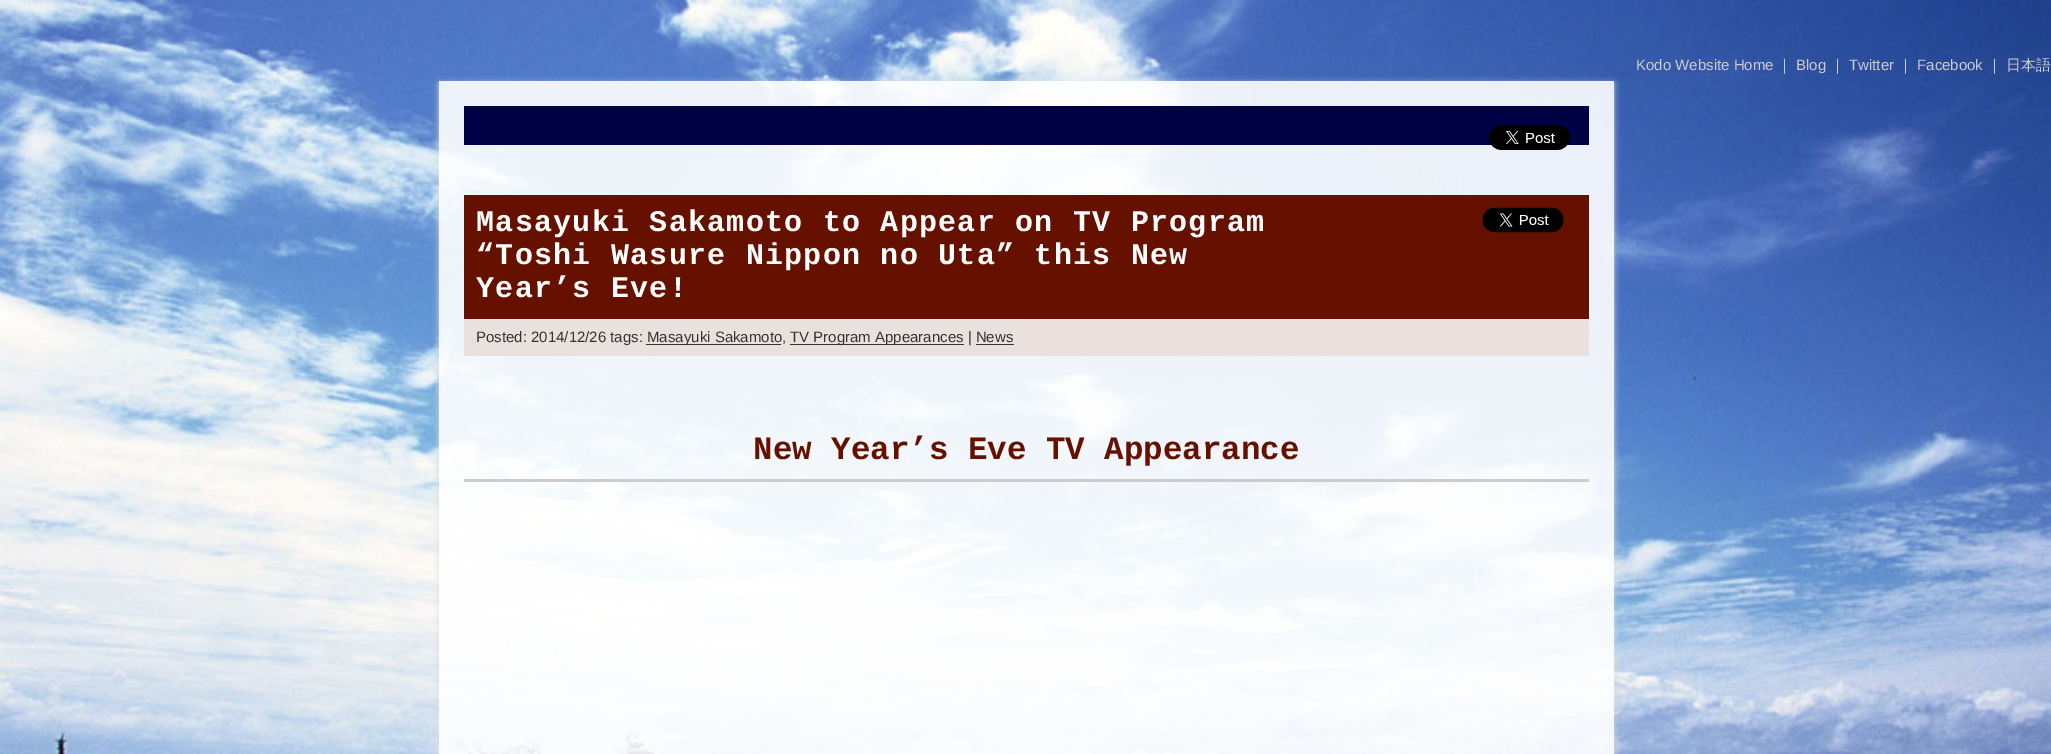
%!PS
<< /PageSize [2051 754] /PageUsesTransparency true >> setpagedevice
/rgb { 3 { 255 div 3 1 roll } repeat setrgbcolor } def
/font { [ exch dup neg 0 0 3 -1 roll 0 0 ] selectfont } def
/text { moveto show } def
/alpha { dup .setfillconstantalpha .setstrokeconstantalpha } def
/roundrect { 5 dict begin { /r /h /w /y /x } { exch def } forall
  x r add y moveto x w add y 2 copy h add r arct x w add y h add x 1 index r arct
  x y h add x y r arct x y 2 copy exch w add exch r arct closepath end } def
/shadow { 12 dict begin { /a /b /q /h /w /y /x } { exch def } forall gsave /was 0 def
  9 -2 -9 { dup b mul 4 div /e exch def 1 sub .425 mul 2.718 exch exp 1 add a .99 .min exch div /now exch def
    1 1 now sub 1 was sub div sub alpha /was now def
    w h .min e 2 mul add 0 gt { x e sub y e sub w e 2 mul add h e 2 mul add
      q e add b .6 mul add w h .min 2 div e add .min 0 .max roundrect fill } if } for grestore end } def
/picture { 5 dict begin { /h /w /y /x /name } { exch def } forall
  gsave x y translate w h scale
  w h 8 [w 0 0 h 0 0] name (r) file false 3 colorimage grestore end } def
0 .pushpdf14devicefilter
0 754 translate 1 -1 scale
4 setmiterlimit
255 255 255 rgb
0 0 2051 754 rectfill
(img_01.rgb) 0 0 2051 754 picture
gsave
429 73 moveto 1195 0 rlineto 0 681 rlineto -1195 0 rlineto closepath 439 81 moveto 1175 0 rlineto 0 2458 rlineto -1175 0 rlineto closepath eoclip newpath
221 221 221 rgb
439 83 1175 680 0 3 1 shadow
grestore
0.9 alpha
439 81 1175 673 rectfill
1 alpha
0 1 68 rgb
464 106 1125 39 rectfill
(img_02.rgb) 1488 125 82 25 picture
102 17 0 rgb
464 195 1125 124 rectfill
(img_03.rgb) 1482 207 82 26 picture
234 224 222 rgb
464 319 1125 37 rectfill
51 51 51 rgb
646 344 135 1 rectfill
790 344 174 1 rectfill
976 344 38 1 rectfill
204 204 204 rgb
464 479 1125 3 rectfill
/LiberationSans-Regular 15 font
(Kodo Website Home) 1636 70 text
/WenQuanYiZenHei-Medium 15 font
(｜) 1777 70 text
/LiberationSans-Regular 15 font
(Blog) 1796 70 text
/WenQuanYiZenHei-Medium 15 font
(｜) 1830 70 text
/LiberationSans-Regular 15 font
(Twitter) 1849 70 text
/WenQuanYiZenHei-Medium 15 font
(｜) 1898 70 text
/LiberationSans-Regular 15 font
(Facebook) 1917 70 text
/WenQuanYiZenHei-Medium 15 font
(｜) 1987 70 text
(日本語) 2006 70 text
/LiberationMono-Bold 30 font
255 255 255 rgb
476 231 moveto 1.25 0 (Masayuki Sakamoto to Appear on TV Program) ashow
476 264 moveto 1.25 0 (“Toshi Wasure Nippon no Uta” this New) ashow
476 297 moveto 1.25 0 (Year’s Eve!) ashow
/LiberationSans-Regular 15 font
51 51 51 rgb
(Posted: 2014/12/26 tags:) 476 342 text
(Masayuki Sakamoto,) 647 342 text
(TV Program Appearances | News) 790 342 text
/LiberationMono-Bold 32.5 font
102 17 0 rgb
(New Year’s Eve TV Appearance) 753 459 text
.poppdf14devicefilter showpage
